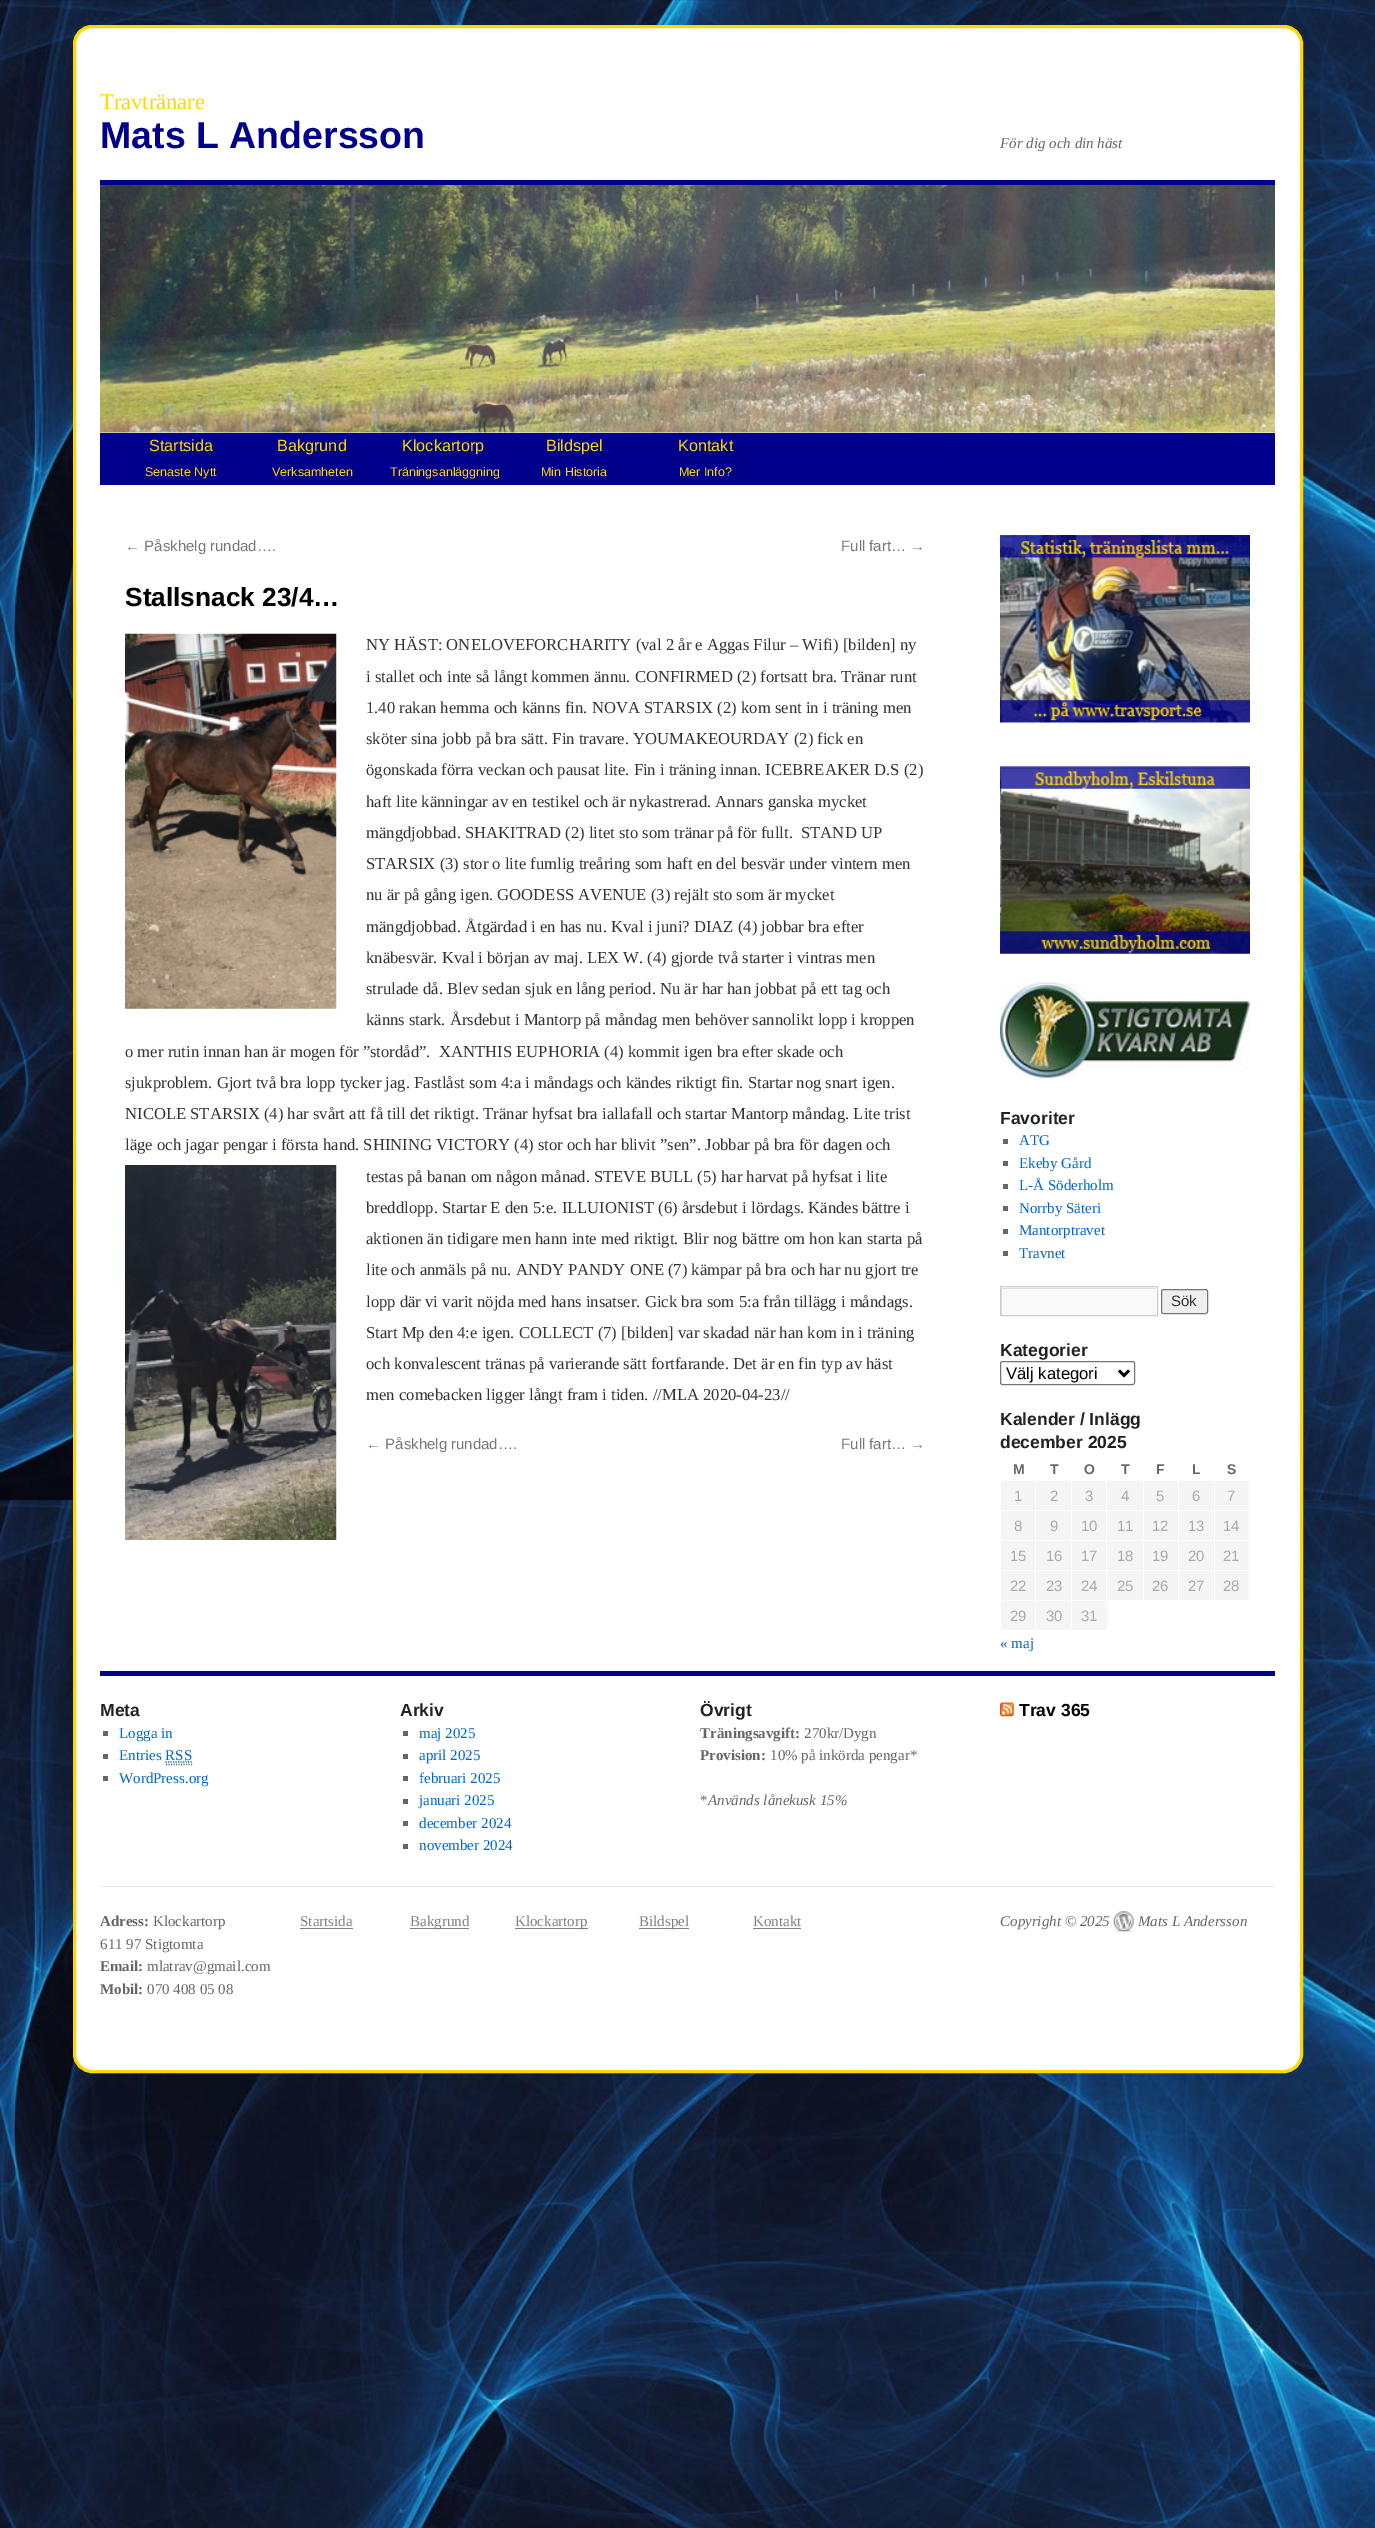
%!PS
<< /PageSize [1375 2528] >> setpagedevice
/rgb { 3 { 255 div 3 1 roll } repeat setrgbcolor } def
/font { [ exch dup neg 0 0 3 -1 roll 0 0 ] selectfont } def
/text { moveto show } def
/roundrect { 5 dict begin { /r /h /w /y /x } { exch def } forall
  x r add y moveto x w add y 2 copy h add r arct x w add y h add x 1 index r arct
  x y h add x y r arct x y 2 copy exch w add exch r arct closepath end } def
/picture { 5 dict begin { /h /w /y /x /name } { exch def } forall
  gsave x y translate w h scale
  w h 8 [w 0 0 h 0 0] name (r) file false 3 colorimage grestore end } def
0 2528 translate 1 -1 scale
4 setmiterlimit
255 255 255 rgb
0 0 1375 2528 rectfill
(img_01.rgb) 0 0 1375 2528 picture
74.5 26.5 1227 2045 17.5 roundrect gsave fill grestore
255 215 0 rgb
3 setlinewidth
stroke
0 0 139 rgb
100 180 1175 5 rectfill
100 433 1175 52 rectfill
(img_02.rgb) 100 185 1175 248 picture
(img_03.rgb) 125 633 212 376 picture
(img_04.rgb) 125 1165 212 375 picture
(img_05.rgb) 1000 535 250 188 picture
(img_06.rgb) 1000 766 250 188 picture
(img_07.rgb) 1000 982 250 96 picture
102 102 102 rgb
1003 1139 5 5 rectfill
1003 1161 5 5 rectfill
1003 1184 5 5 rectfill
1003 1206 5 5 rectfill
1003 1229 5 5 rectfill
1003 1251 5 5 rectfill
249 249 249 rgb
1001 1287 156 28 rectfill
gsave
1001 1288 155 27 rectclip
224 224 224 rgb
878 1164 moveto 402 0 rlineto 0 275 rlineto -402 0 rlineto closepath 1002 1289 moveto 156 0 rlineto 0 27 rlineto -156 0 rlineto closepath eofill
grestore
204 204 204 rgb
1 setlinewidth
1000.5 1286.5 157 29 rectstroke
239 239 239 rgb
1161.5 1289.5 46 24 2 roundrect gsave fill grestore
118 118 118 rgb
stroke
1000.5 1361.5 134 23 2 roundrect stroke
0 0 0 rgb
2.5 setlinewidth
1119 1370.5 moveto 5 5 rlineto 5 -5 rlineto stroke
245 245 245 rgb
1001 1481 34 29 rectfill
1036 1481 35 29 rectfill
1072 1481 71 29 rectfill
1144 1481 34 29 rectfill
1179 1481 35 29 rectfill
1215 1481 34 29 rectfill
1001 1511 34 29 rectfill
1036 1511 35 29 rectfill
1072 1511 71 29 rectfill
1144 1511 34 29 rectfill
1179 1511 35 29 rectfill
1215 1511 34 29 rectfill
1001 1541 34 29 rectfill
1036 1541 35 29 rectfill
1072 1541 71 29 rectfill
1144 1541 34 29 rectfill
1179 1541 35 29 rectfill
1215 1541 34 29 rectfill
1001 1571 34 29 rectfill
1036 1571 35 29 rectfill
1072 1571 71 29 rectfill
1144 1571 34 29 rectfill
1179 1571 35 29 rectfill
1215 1571 34 29 rectfill
1001 1601 34 29 rectfill
1036 1601 35 29 rectfill
1072 1601 36 29 rectfill
255 255 255 rgb
1106 1480 1 151 rectfill
0 0 139 rgb
100 1671 1175 5 rectfill
102 102 102 rgb
103 1731 5 5 rectfill
103 1754 5 5 rectfill
1.2 setlinewidth
[1.25 1.25] 0 setdash
166 1764.5 moveto 26.5 0 rlineto stroke
0 102 204 rgb
165.5 1762 moveto 27 0 rlineto stroke
102 102 102 rgb
103 1776 5 5 rectfill
403 1731 5 5 rectfill
403 1754 5 5 rectfill
403 1776 5 5 rectfill
403 1799 5 5 rectfill
403 1821 5 5 rectfill
403 1844 5 5 rectfill
(img_08.rgb) 1000 1702 14 15 picture
231 231 231 rgb
100 1886 1175 1 rectfill
128 128 128 rgb
300 1928 53 1 rectfill
410 1928 59 1 rectfill
515 1928 73 1 rectfill
639 1928 50 1 rectfill
753 1928 48 1 rectfill
(img_09.rgb) 1113 1911 21 21 picture
/LiberationSerif-Regular 22.5 font
255 215 0 rgb
(Travtränare) 100 109 text
/LiberationSans-Bold 37.5 font
0 0 139 rgb
(Mats L Andersson) 100 148 text
/LiberationSerif-Italic 15 font
102 102 102 rgb
(För dig och din häst) 1000 148 text
/LiberationSans-Regular 16.25 font
255 215 0 rgb
(Startsida) 149 451 text
/LiberationSans-Regular 12.5 font
(Senaste Nytt) 145 476 text
/LiberationSans-Regular 16.25 font
(Bakgrund) 277 451 text
/LiberationSans-Regular 12.5 font
(Verksamheten) 272 476 text
/LiberationSans-Regular 16.25 font
(Klockartorp) 402 451 text
/LiberationSans-Regular 12.5 font
(Träningsanläggning) 390 476 text
/LiberationSans-Regular 16.25 font
(Bildspel) 546 451 text
/LiberationSans-Regular 12.5 font
(Min Historia) 541 476 text
/LiberationSans-Regular 16.25 font
(Kontakt) 678 451 text
/LiberationSans-Regular 12.5 font
(Mer Info?) 679 476 text
/LiberationSans-Regular 15 font
119 119 119 rgb
(← Påskhelg rundad….) 125 551 text
(Full fart… →) 841 551 text
/LiberationSans-Bold 26.25 font
0 0 0 rgb
(Stallsnack 23/4…) 125 606 text
/LiberationSerif-Regular 16.65 font
51 51 51 rgb
(NY HÄST: ONELOVEFORCHARITY \(val 2 år e Aggas Filur – Wifi\) [bilden] ny) 366 650 text
(i stallet och inte så långt kommen ännu. CONFIRMED \(2\) fortsatt bra. Tränar runt) 366 682 text
(1.40 rakan hemma och känns fin. NOVA STARSIX \(2\) kom sent in i träning men) 366 713 text
(sköter sina jobb på bra sätt. Fin travare. YOUMAKEOURDAY \(2\) fick en) 366 744 text
(ögonskada förra veckan och pausat lite. Fin i träning innan. ICEBREAKER D.S \(2\)) 366 775 text
(haft lite känningar av en testikel och är nykastrerad. Annars ganska mycket) 366 807 text
(mängdjobbad. SHAKITRAD \(2\) litet sto som tränar på för fullt.  STAND UP) 366 838 text
(STARSIX \(3\) stor o lite fumlig treåring som haft en del besvär under vintern men) 366 869 text
(nu är på gång igen. GOODESS AVENUE \(3\) rejält sto som är mycket) 366 900 text
(mängdjobbad. Åtgärdad i en has nu. Kval i juni? DIAZ \(4\) jobbar bra efter) 366 932 text
(knäbesvär. Kval i början av maj. LEX W. \(4\) gjorde två starter i vintras men) 366 963 text
(strulade då. Blev sedan sjuk en lång period. Nu är har han jobbat på ett tag och) 366 994 text
(känns stark. Årsdebut i Mantorp på måndag men behöver sannolikt lopp i kroppen) 366 1025 text
(o mer rutin innan han är mogen för ”stordåd”.  XANTHIS EUPHORIA \(4\) kommit igen bra efter skade och) 125 1057 text
(sjukproblem. Gjort två bra lopp tycker jag. Fastlåst som 4:a i måndags och kändes riktigt fin. Startar nog snart igen.) 125 1088 text
(NICOLE STARSIX \(4\) har svårt att få till det riktigt. Tränar hyfsat bra iallafall och startar Mantorp måndag. Lite trist) 125 1119 text
(läge och jagar pengar i första hand. SHINING VICTORY \(4\) stor och har blivit ”sen”. Jobbar på bra för dagen och) 125 1150 text
(testas på banan om någon månad. STEVE BULL \(5\) har harvat på hyfsat i lite) 366 1182 text
(breddlopp. Startar E den 5:e. ILLUIONIST \(6\) årsdebut i lördags. Kändes bättre i) 366 1213 text
(aktionen än tidigare men hann inte med riktigt. Blir nog bättre om hon kan starta på) 366 1244 text
(lite och anmäls på nu. ANDY PANDY ONE \(7\) kämpar på bra och har nu gjort tre) 366 1275 text
(lopp där vi varit nöjda med hans insatser. Gick bra som 5:a från tillägg i måndags.) 366 1307 text
(Start Mp den 4:e igen. COLLECT \(7\) [bilden] var skadad när han kom in i träning) 366 1338 text
(och konvalescent tränas på varierande sätt fortfarande. Det är en fin typ av häst) 366 1369 text
(men comebacken ligger långt fram i tiden. //MLA 2020-04-23//) 366 1400 text
/LiberationSans-Regular 15 font
119 119 119 rgb
(← Påskhelg rundad….) 366 1449 text
(Full fart… →) 841 1449 text
/LiberationSans-Bold 17.5 font
34 34 34 rgb
(Favoriter) 1000 1124 text
/LiberationSerif-Regular 15 font
0 102 204 rgb
(ATG) 1019 1145 text
(Ekeby Gård) 1019 1168 text
(L-Å Söderholm) 1019 1190 text
(Norrby Säteri) 1019 1213 text
(Mantorptravet) 1019 1235 text
(Travnet) 1019 1258 text
/LiberationSans-Regular 15 font
51 51 51 rgb
(Sök) 1171 1306 text
/LiberationSans-Bold 17.5 font
34 34 34 rgb
(Kategorier) 1000 1356 text
/LiberationSans-Regular 16.65 font
0 0 0 rgb
(Välj kategori) 1006 1379 text
/LiberationSans-Bold 17.5 font
34 34 34 rgb
(Kalender / Inlägg) 1000 1425 text
(december 2025) 1000 1448 text
/LiberationSans-Bold 14 font
102 102 102 rgb
(M) 1013 1474 text
(T) 1050 1474 text
(O) 1084 1474 text
(T) 1121 1474 text
(F) 1156 1474 text
(L) 1192 1474 text
(S) 1227 1474 text
/LiberationSans-Regular 15 font
170 170 170 rgb
(1) 1014 1501 text
(2) 1050 1501 text
(3) 1085 1501 text
(4) 1121 1501 text
(5) 1156 1501 text
(6) 1192 1501 text
(7) 1227 1501 text
(8) 1014 1531 text
(9) 1050 1531 text
(10) 1081 1531 text
(11) 1117 1531 text
(12) 1152 1531 text
(13) 1188 1531 text
(14) 1223 1531 text
(15) 1010 1561 text
(16) 1046 1561 text
(17) 1081 1561 text
(18) 1117 1561 text
(19) 1152 1561 text
(20) 1188 1561 text
(21) 1223 1561 text
(22) 1010 1591 text
(23) 1046 1591 text
(24) 1081 1591 text
(25) 1117 1591 text
(26) 1152 1591 text
(27) 1188 1591 text
(28) 1223 1591 text
(29) 1010 1621 text
(30) 1046 1621 text
(31) 1081 1621 text
/LiberationSerif-Regular 15 font
0 102 204 rgb
(« maj) 1000 1648 text
/LiberationSans-Bold 17.5 font
34 34 34 rgb
(Meta) 100 1716 text
/LiberationSerif-Regular 15 font
0 102 204 rgb
(Logga in) 119 1738 text
(Entries RSS) 119 1760 text
(WordPress.org) 119 1783 text
/LiberationSans-Bold 17.5 font
34 34 34 rgb
(Arkiv) 400 1716 text
/LiberationSerif-Regular 15 font
0 102 204 rgb
(maj 2025) 419 1738 text
(april 2025) 419 1760 text
(februari 2025) 419 1783 text
(januari 2025) 419 1805 text
(december 2024) 419 1828 text
(november 2024) 419 1850 text
/LiberationSans-Bold 17.5 font
34 34 34 rgb
(Övrigt) 700 1716 text
/LiberationSerif-Bold 15 font
102 102 102 rgb
(Träningsavgift:) 700 1738 text
/LiberationSerif-Regular 15 font
(270kr/Dygn) 804 1738 text
/LiberationSerif-Bold 15 font
(Provision:) 700 1760 text
/LiberationSerif-Regular 15 font
(10% på inkörda pengar*) 770 1760 text
(*) 700 1805 text
/LiberationSerif-Italic 15 font
(Används lånekusk 15%) 708 1805 text
/LiberationSans-Bold 17.5 font
0 0 0 rgb
(Trav 365) 1019 1716 text
/LiberationSerif-Bold 15 font
102 102 102 rgb
(Adress:) 100 1926 text
/LiberationSerif-Regular 15 font
(Klockartorp) 153 1926 text
(611 97 Stigtomta) 100 1949 text
/LiberationSerif-Bold 15 font
(Email:) 100 1971 text
/LiberationSerif-Regular 15 font
(mlatrav@gmail.com) 147 1971 text
/LiberationSerif-Bold 15 font
(Mobil:) 100 1994 text
/LiberationSerif-Regular 15 font
(070 408 05 08) 147 1994 text
128 128 128 rgb
(Startsida) 300 1926 text
(Bakgrund) 410 1926 text
(Klockartorp) 515 1926 text
(Bildspel) 639 1926 text
(Kontakt) 753 1926 text
/LiberationSerif-Italic 15 font
102 102 102 rgb
(Copyright © 2025) 1000 1926 text
(Mats L Andersson) 1138 1926 text
showpage
